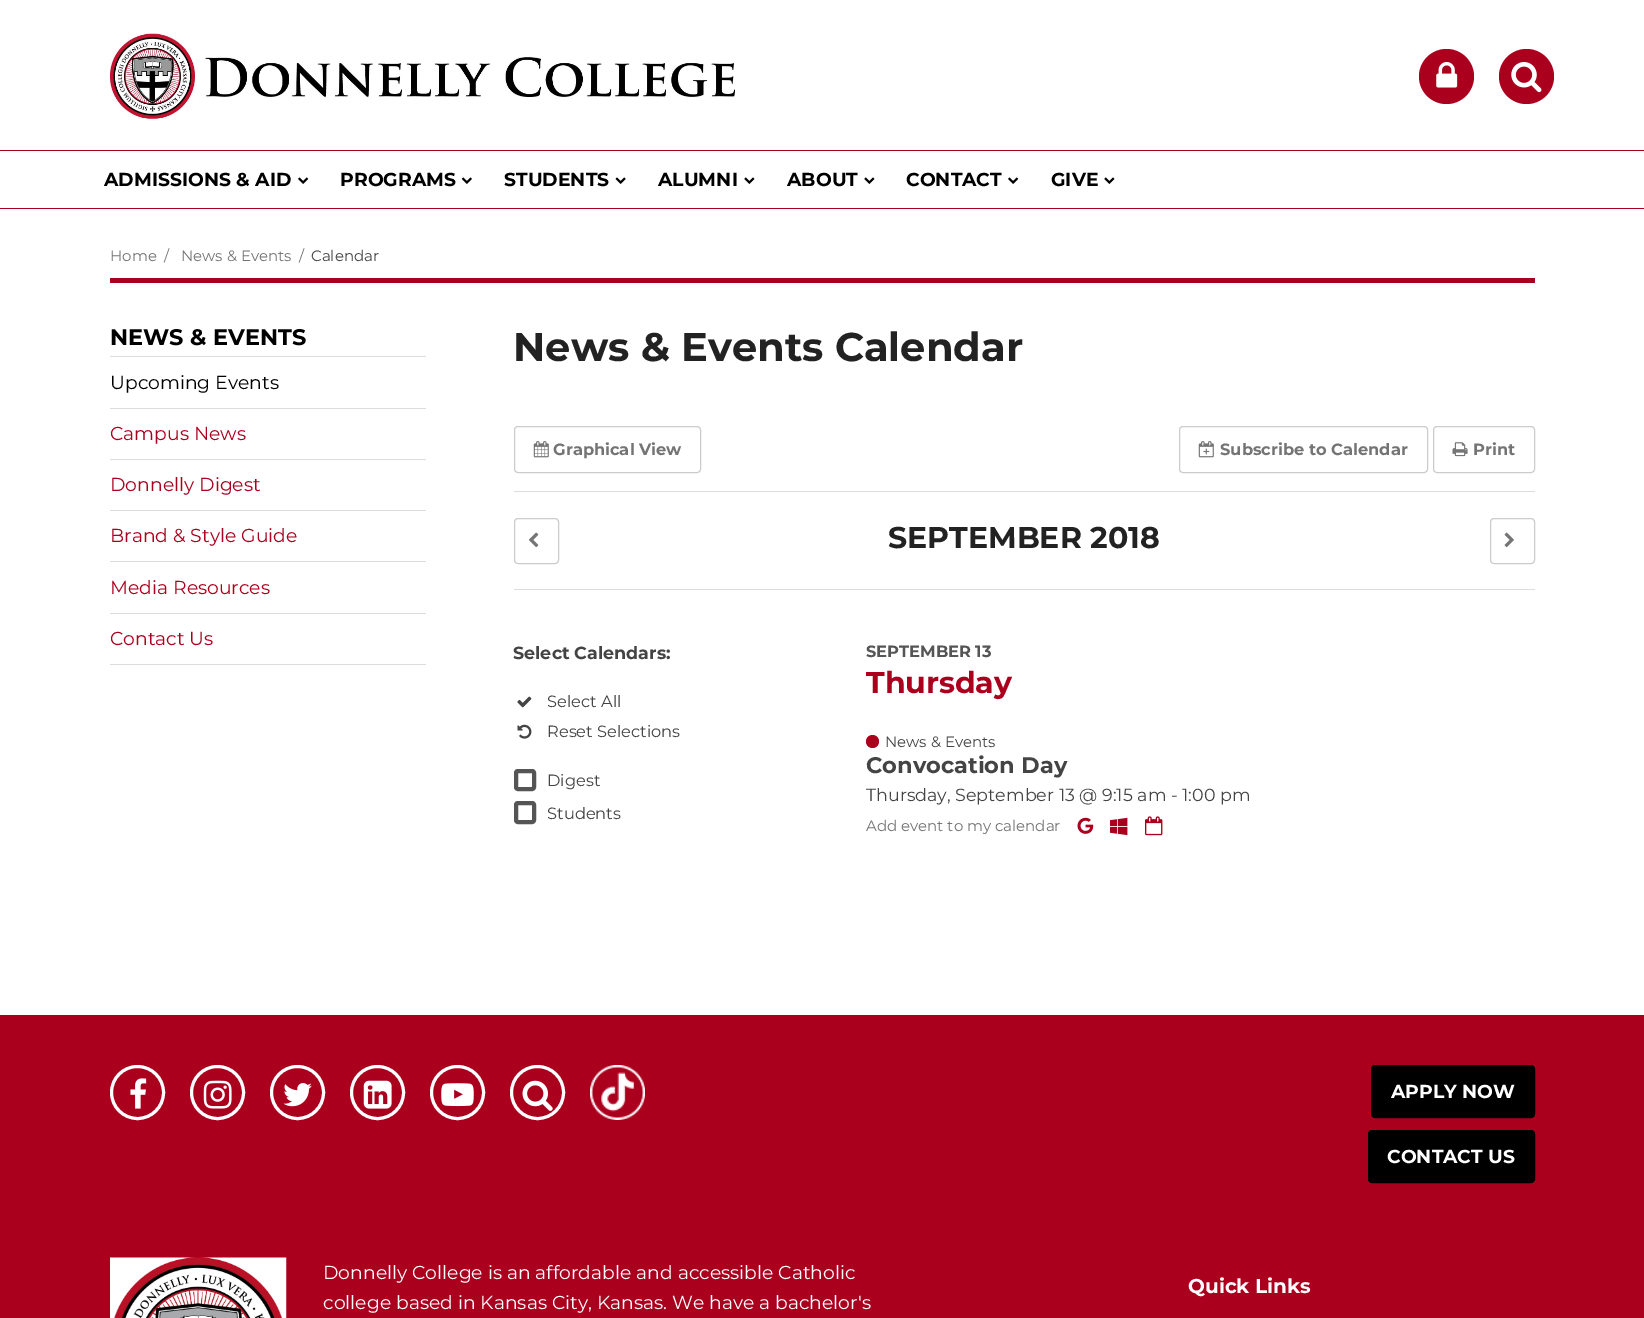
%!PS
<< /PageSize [1644 1318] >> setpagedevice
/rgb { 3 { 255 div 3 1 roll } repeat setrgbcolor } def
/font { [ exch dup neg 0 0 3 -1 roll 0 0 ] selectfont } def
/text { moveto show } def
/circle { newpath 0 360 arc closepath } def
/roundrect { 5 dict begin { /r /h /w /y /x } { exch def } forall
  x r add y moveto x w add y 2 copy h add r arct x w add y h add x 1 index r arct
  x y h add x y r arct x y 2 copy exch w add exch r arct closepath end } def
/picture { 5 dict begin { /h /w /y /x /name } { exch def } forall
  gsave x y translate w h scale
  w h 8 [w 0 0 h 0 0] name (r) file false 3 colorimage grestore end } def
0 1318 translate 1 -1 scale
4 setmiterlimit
255 255 255 rgb
0 0 1644 1318 rectfill
(img_01.rgb) 110 33 625 86 picture
170 0 30 rgb
1446.5 76.5 27.5 circle fill
(img_02.rgb) 1436 62 22 26 picture
1526.5 76.5 27.5 circle fill
(img_03.rgb) 1511 62 31 31 picture
0 150 1644 1 rectfill
0 208 1644 1 rectfill
(img_04.rgb) 298 177 11 7 picture
(img_05.rgb) 461 177 11 7 picture
(img_06.rgb) 615 177 11 7 picture
(img_07.rgb) 744 177 11 7 picture
(img_07.rgb) 864 177 11 7 picture
(img_04.rgb) 1008 177 11 7 picture
(img_07.rgb) 1104 177 11 7 picture
110 278 1425 5 rectfill
221 221 221 rgb
110 356 316 1 rectfill
110 408 316 1 rectfill
110 459 316 1 rectfill
110 510 316 1 rectfill
110 561 316 1 rectfill
110 613 316 1 rectfill
110 664 316 1 rectfill
204 204 204 rgb
514.5 426.5 186 46 3.5 roundrect stroke
(img_08.rgb) 533 441 16 17 picture
1179.5 426.5 248 46 3.5 roundrect stroke
(img_09.rgb) 1198 441 16 17 picture
1433.5 426.5 101 46 3.5 roundrect stroke
(img_10.rgb) 1452 442 16 15 picture
221 221 221 rgb
514 491 1021 1 rectfill
514 589 1021 1 rectfill
204 204 204 rgb
514.5 518.5 44 45 3.5 roundrect stroke
(img_11.rgb) 529 532 10 16 picture
1490.5 518.5 44 45 3.5 roundrect stroke
(img_12.rgb) 1504 532 10 16 picture
(img_13.rgb) 517 696 15 12 picture
(img_14.rgb) 517 724 15 15 picture
85 85 85 rgb
4 setlinewidth
516 771 18 18 2 roundrect stroke
516 803 18 19 2 roundrect stroke
170 0 30 rgb
872.5 741.5 6.5 circle fill
(img_15.rgb) 1077 817 17 17 picture
(img_16.rgb) 1110 817 18 19 picture
(img_17.rgb) 1145 816 18 20 picture
0 1015 1644 303 rectfill
255 255 255 rgb
3 setlinewidth
137.5 1092.5 26 circle stroke
(img_18.rgb) 130 1078 17 31 picture
217.5 1092.5 26 circle stroke
(img_19.rgb) 203 1080 29 29 picture
297.5 1092.5 26 circle stroke
(img_20.rgb) 283 1083 29 24 picture
377.5 1092.5 26 circle stroke
(img_21.rgb) 363 1080 29 29 picture
457.5 1092.5 26 circle stroke
(img_22.rgb) 441 1083 33 24 picture
537.5 1092.5 26 circle stroke
(img_23.rgb) 522 1080 31 31 picture
(img_24.rgb) 590 1065 55 55 picture
0 0 0 rgb
1371.5 1065.5 163 52 3.5 roundrect gsave fill grestore
1 setlinewidth
stroke
1368.5 1130.5 166 52 3.5 roundrect gsave fill grestore
stroke
(img_25.rgb) 110 1257 177 61 picture
/Montserrat-Bold 18.75 font
(ADMISSIONS & AID) 104 186 text
(PROGRAMS) 340 186 text
(STUDENTS) 504 186 text
(ALUMNI) 658 186 text
(ABOUT) 787 186 text
(CONTACT) 906 186 text
(GIVE) 1051 186 text
/Montserrat-Regular 15 font
116 116 116 rgb
(Home) 110 261 text
(/) 164 261 text
(News & Events) 181 261 text
(/) 299 261 text
68 68 68 rgb
(Calendar) 311 261 text
/Montserrat-Bold 22.5 font
0 0 0 rgb
(NEWS & EVENTS) 110 345 text
/Montserrat-Regular 18.75 font
(Upcoming Events) 110 389 text
170 0 30 rgb
(Campus News) 110 440 text
(Donnelly Digest) 110 491 text
(Brand & Style Guide) 110 542 text
(Media Resources) 110 594 text
(Contact Us) 110 645 text
/Montserrat-Bold 40 font
34 34 34 rgb
(News & Events Calendar) 513 361 text
/Montserrat-Bold 16.25 font
116 116 116 rgb
(Graphical View) 553 455 text
(Subscribe to Calendar) 1220 455 text
(Print) 1473 455 text
/Montserrat-Bold 30 font
34 34 34 rgb
(SEPTEMBER 2018) 888 548 text
/Montserrat-Bold 17.5 font
68 68 68 rgb
(Select Calendars:) 513 659 text
/Montserrat-Regular 16.25 font
(Select All) 547 707 text
(Reset Selections) 547 737 text
(Digest) 547 786 text
(Students) 547 819 text
/Montserrat-Bold 16.25 font
85 85 85 rgb
(SEPTEMBER 13) 866 657 text
/Montserrat-Bold 30 font
170 0 30 rgb
(Thursday) 866 693 text
/Montserrat-Regular 15 font
68 68 68 rgb
(News & Events) 885 747 text
/Montserrat-Bold 22.5 font
(Convocation Day) 866 773 text
/Montserrat-Regular 17.5 font
(Thursday, September 13 @ 9:15 am - 1:00 pm) 866 801 text
/Montserrat-Regular 15 font
116 116 116 rgb
(Add event to my calendar) 866 831 text
/Montserrat-Bold 18.75 font
255 255 255 rgb
(APPLY NOW) 1391 1098 text
(CONTACT US) 1387 1163 text
/Montserrat-Regular 18.75 font
(Donnelly College is an affordable and accessible Catholic) 323 1279 text
(college based in Kansas City, Kansas. We have a bachelor's) 323 1309 text
/Montserrat-Bold 20 font
(Quick Links) 1188 1293 text
showpage
